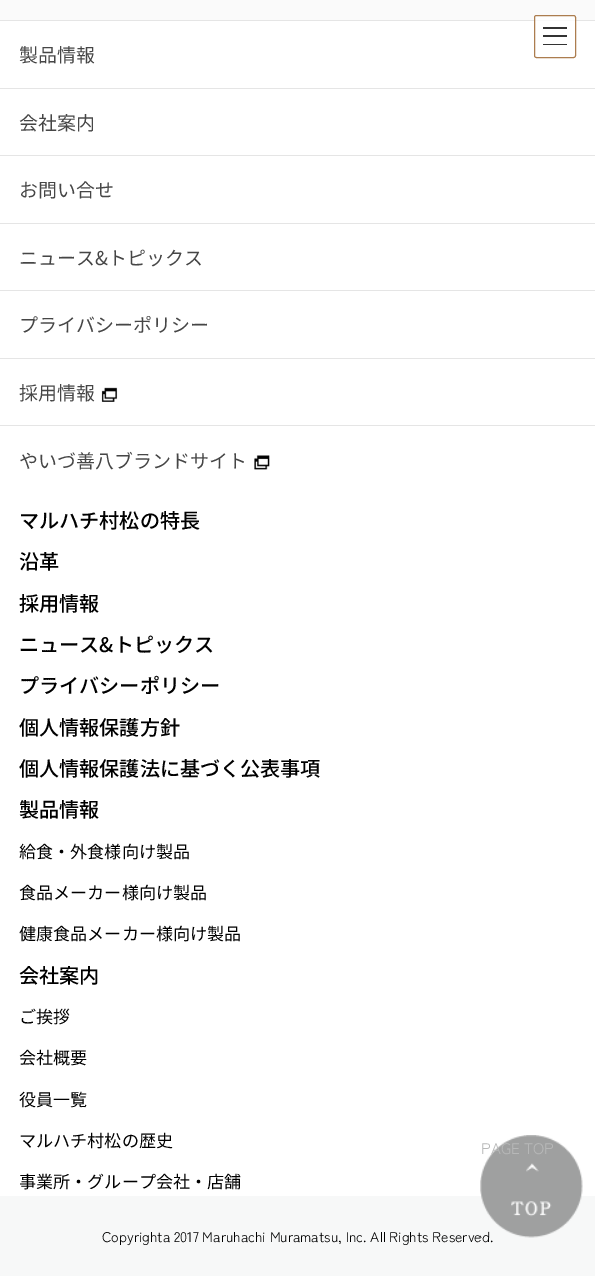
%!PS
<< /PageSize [595 1276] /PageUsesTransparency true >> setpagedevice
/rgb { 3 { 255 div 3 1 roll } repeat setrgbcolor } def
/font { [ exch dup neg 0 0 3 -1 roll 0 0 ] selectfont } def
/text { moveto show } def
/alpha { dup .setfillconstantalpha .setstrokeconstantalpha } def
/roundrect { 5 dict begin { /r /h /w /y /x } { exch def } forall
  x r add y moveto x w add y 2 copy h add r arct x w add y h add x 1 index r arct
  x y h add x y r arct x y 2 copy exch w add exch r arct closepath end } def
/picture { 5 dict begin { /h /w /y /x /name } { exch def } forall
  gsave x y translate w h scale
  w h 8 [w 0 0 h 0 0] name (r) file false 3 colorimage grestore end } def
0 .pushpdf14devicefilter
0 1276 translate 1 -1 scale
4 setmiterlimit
255 255 255 rgb
0 0 595 1276 rectfill
229 229 229 rgb
0 20 595 1 rectfill
250 250 250 rgb
0 0 595 20 rectfill
0.8 alpha
255 255 255 rgb
534 15 42 43 2.5 roundrect fill
1 alpha
51 51 51 rgb
543 27 24 2 rectfill
543 35 24 2 rectfill
543 44 24 1 rectfill
172 125 79 rgb
534.5 15.5 41 42 2 roundrect stroke
229 229 229 rgb
0 88 595 1 rectfill
0 155 595 1 rectfill
0 223 595 1 rectfill
0 290 595 1 rectfill
0 358 595 1 rectfill
0 425 595 1 rectfill
(img_01.rgb) 101 387 17 15 picture
(img_02.rgb) 254 455 16 15 picture
247 248 248 rgb
0 1196 595 80 rectfill
/NotoSansJP-Regular 19 font
70 70 70 rgb
(製品情報) 19 62 text
(会社案内) 19 130 text
(お問い合せ) 19 197 text
(ニュース&トピックス) 19 265 text
(プライバシーポリシー) 19 332 text
(採用情報) 19 400 text
(やいづ善八ブランドサイト) 19 468 text
/NotoSansJP-Medium 20.1 font
0 0 0 rgb
(マルハチ村松の特長) 19 528 text
(沿革) 19 569 text
(採用情報) 19 611 text
(ニュース&トピックス) 19 652 text
(プライバシーポリシー) 19 693 text
(個人情報保護方針) 19 735 text
(個人情報保護法に基づく公表事項) 19 776 text
(製品情報) 19 817 text
/NotoSansJP-Regular 17.1 font
(給食・外食様向け製品) 19 858 text
(食品メーカー様向け製品) 19 899 text
(健康食品メーカー様向け製品) 19 940 text
/NotoSansJP-Medium 20.1 font
(会社案内) 19 983 text
/NotoSansJP-Regular 17.1 font
(ご挨拶) 19 1023 text
(会社概要) 19 1064 text
(役員一覧) 19 1106 text
(マルハチ村松の歴史) 19 1147 text
(事業所・グループ会社・店舗) 19 1188 text
/ZenKakuGothicNew-Regular 14 font
(Copyrighta 2017 Maruhachi Muramatsu, Inc. All Rights Reserved.) 102 1242 text
(img_03.rgb) 480 1135 103 103 picture
/ZenKakuGothicNew-Regular 15.25 font
183 184 184 rgb
(PAGE TOP) 481 1154 text
.poppdf14devicefilter showpage
